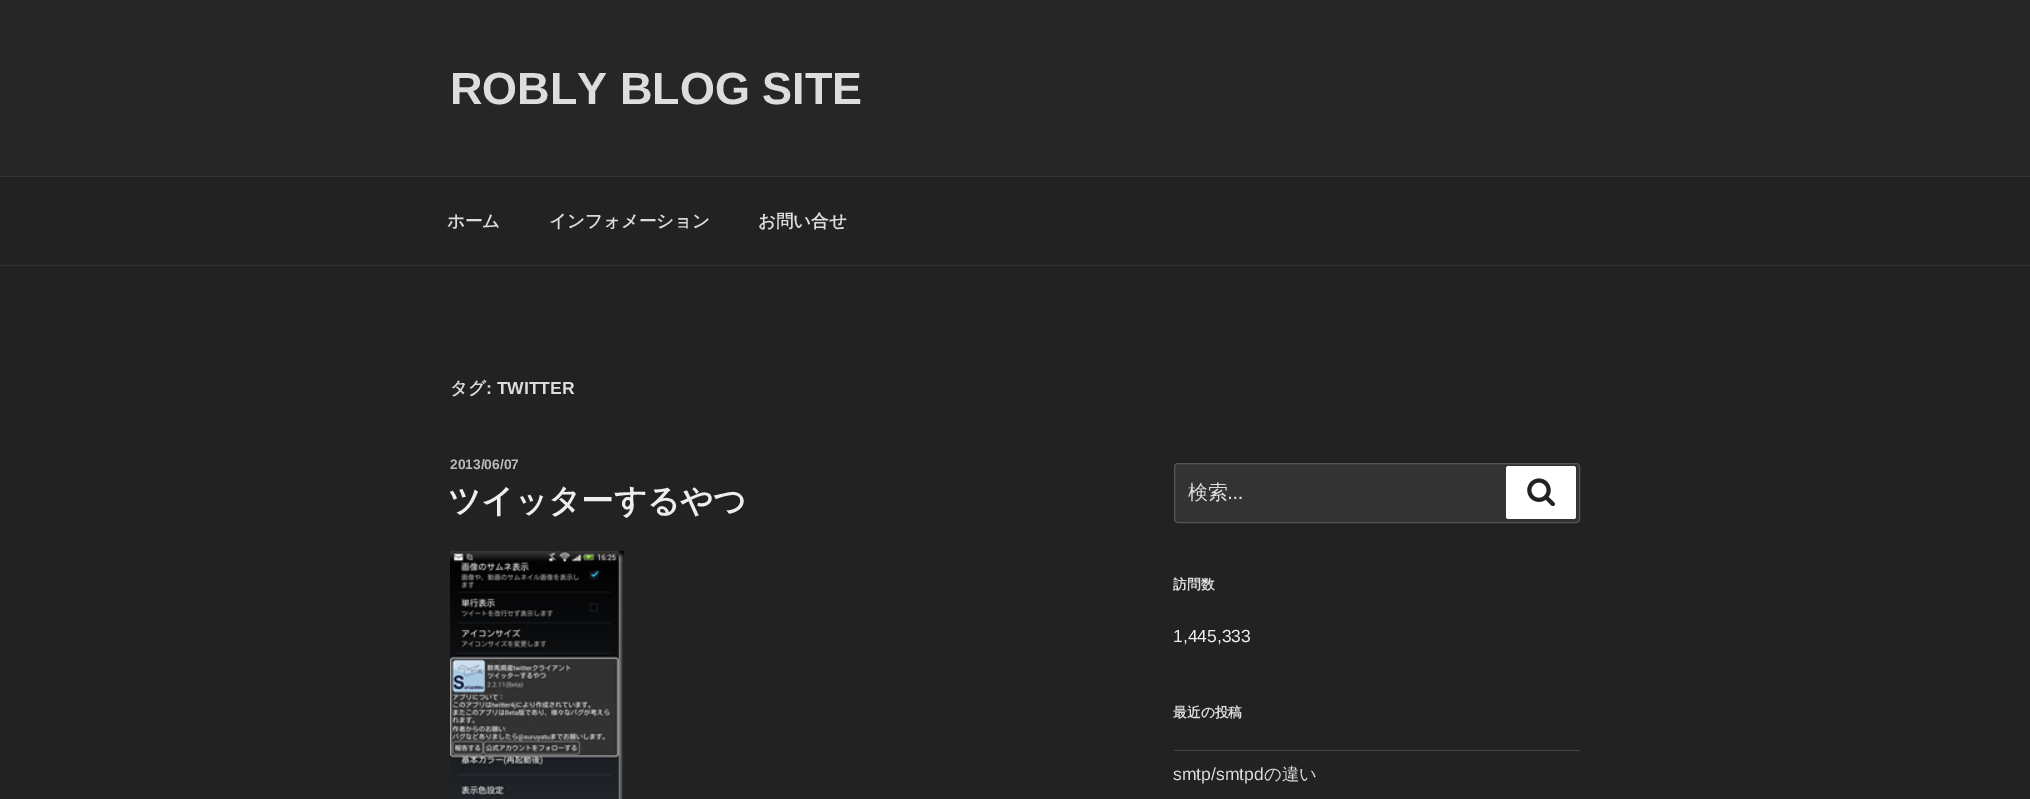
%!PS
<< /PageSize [2030 799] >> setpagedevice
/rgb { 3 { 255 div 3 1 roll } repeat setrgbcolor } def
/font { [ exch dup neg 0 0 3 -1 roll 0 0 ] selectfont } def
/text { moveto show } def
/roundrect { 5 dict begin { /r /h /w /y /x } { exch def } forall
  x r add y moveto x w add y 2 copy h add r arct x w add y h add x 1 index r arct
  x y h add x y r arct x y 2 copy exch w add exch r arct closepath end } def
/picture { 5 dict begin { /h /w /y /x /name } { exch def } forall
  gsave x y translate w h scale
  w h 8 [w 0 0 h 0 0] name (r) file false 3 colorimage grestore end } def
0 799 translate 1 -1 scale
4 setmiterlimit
34 34 34 rgb
0 0 2030 799 rectfill
38 38 38 rgb
0 0 2030 176 rectfill
51 51 51 rgb
0 176 2030 1 rectfill
0 265 2030 1 rectfill
(img_01.rgb) 450 551 174 248 picture
1174.5 463.5 405 59 3.5 roundrect gsave fill grestore
85 85 85 rgb
stroke
255 255 255 rgb
1506 466 70 53 2.5 roundrect fill
(img_02.rgb) 1527 478 28 28 picture
68 68 68 rgb
1174 750 406 1 rectfill
/LiberationSans-Bold 45 font
221 221 221 rgb
(ROBLY BLOG SITE) 450 104 text
/WenQuanYiZenHei-Bold 17.5 font
(ホーム) 447 227 text
(インフォメーション) 549 227 text
(お問い合せ) 758 227 text
(タグ) 450 394 text
/LiberationSans-Bold 17.5 font
(: TWITTER) 486 394 text
/LiberationSans-Bold 13.75 font
187 187 187 rgb
(2013/06/07) 450 469 text
/WenQuanYiZenHei-Bold 32.5 font
238 238 238 rgb
(ツイッターするやつ) 448 512 text
/WenQuanYiZenHei-Medium 20 font
221 221 221 rgb
(検索) 1188 499 text
/LibreFranklin-Regular 20 font
(…) 1228 499 text
/WenQuanYiZenHei-Bold 13.75 font
(訪問数) 1173 589 text
/LiberationSans-Regular 17.5 font
238 238 238 rgb
(1,445,333) 1173 642 text
/WenQuanYiZenHei-Bold 13.75 font
221 221 221 rgb
(最近の投稿) 1173 717 text
/LiberationSans-Regular 17.5 font
(smtp/smtpd) 1173 780 text
/WenQuanYiZenHei-Medium 17.5 font
(の違い) 1264 780 text
showpage
